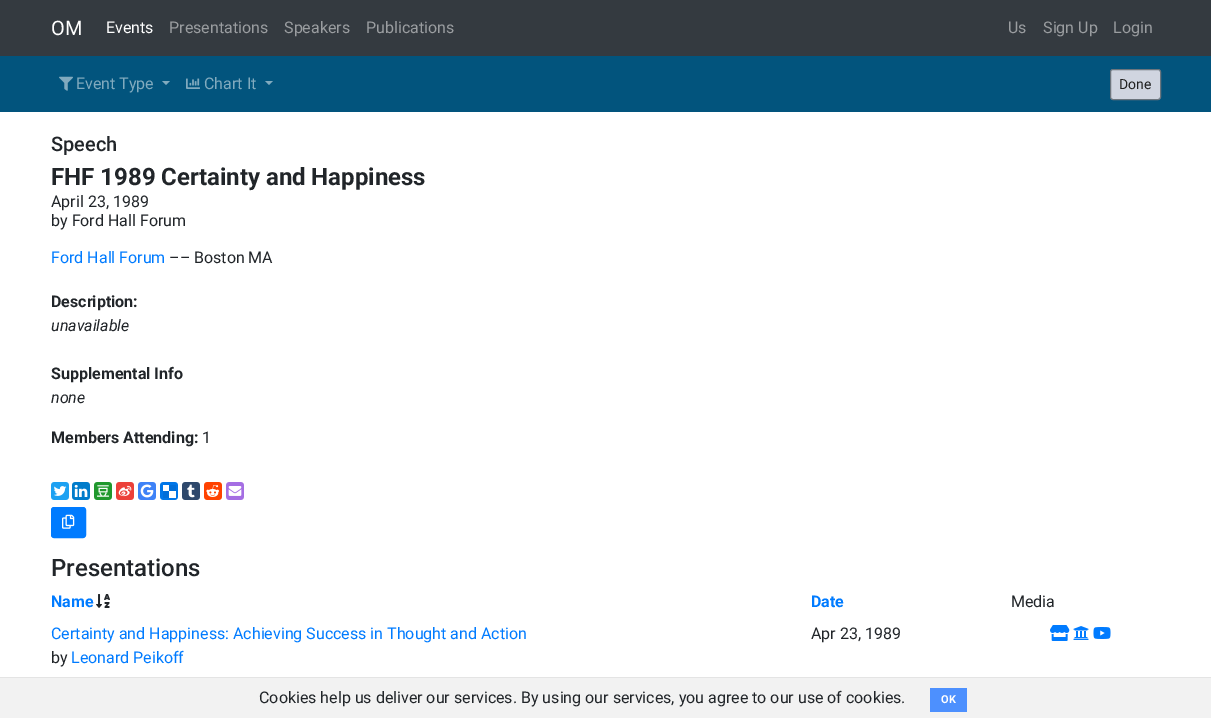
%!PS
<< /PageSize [1211 718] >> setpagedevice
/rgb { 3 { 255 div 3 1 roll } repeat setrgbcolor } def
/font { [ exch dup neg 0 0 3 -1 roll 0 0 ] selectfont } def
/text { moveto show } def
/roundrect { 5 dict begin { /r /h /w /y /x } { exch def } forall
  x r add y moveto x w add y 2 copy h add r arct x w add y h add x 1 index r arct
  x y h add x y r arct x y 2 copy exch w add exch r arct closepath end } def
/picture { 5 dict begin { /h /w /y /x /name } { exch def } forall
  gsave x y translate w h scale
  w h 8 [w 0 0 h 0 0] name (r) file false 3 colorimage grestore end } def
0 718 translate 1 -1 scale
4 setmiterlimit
255 255 255 rgb
0 0 1211 718 rectfill
52 58 64 rgb
0 0 1211 56 rectfill
2 84 125 rgb
0 56 1211 56 rectfill
(img_01.rgb) 59 76 14 15 picture
129 170 190 rgb
162 81 moveto 8 0 rlineto -4 4 rlineto closepath fill
(img_02.rgb) 186 78 14 11 picture
265 81 moveto 8 0 rlineto -4 4 rlineto closepath fill
208 213 224 rgb
1110.5 69.5 50 30 2.5 roundrect gsave fill grestore
108 117 125 rgb
stroke
(img_03.rgb) 51 482 18 18 picture
(img_04.rgb) 72 482 18 18 picture
(img_05.rgb) 94 482 18 18 picture
(img_06.rgb) 116 482 18 18 picture
(img_07.rgb) 138 482 18 18 picture
(img_08.rgb) 160 482 18 18 picture
(img_09.rgb) 182 482 18 18 picture
(img_10.rgb) 204 482 18 18 picture
(img_11.rgb) 226 482 18 18 picture
0 123 255 rgb
51.5 507.5 34 30 2.5 roundrect gsave fill grestore
stroke
(img_12.rgb) 62 514 13 15 picture
(img_13.rgb) 96 594 14 14 picture
(img_14.rgb) 1050 625 20 16 picture
(img_15.rgb) 1073 626 16 14 picture
(img_16.rgb) 1093 627 18 12 picture
242 242 242 rgb
0 678 1211 40 rectfill
228 228 228 rgb
0 677 1211 1 rectfill
77 144 254 rgb
930 688 37 24 rectfill
/Roboto-Regular 20 font
255 255 255 rgb
(OM) 51 35 text
/Roboto-Regular 16 font
(Events) 106 33 text
154 157 160 rgb
(Presentations) 169 33 text
(Speakers) 284 33 text
(Publications) 366 33 text
(Us) 1008 33 text
(Sign Up) 1043 33 text
(Login) 1113 33 text
129 170 190 rgb
(Event Type) 76 89 text
(Chart It) 204 89 text
/Roboto-Regular 14 font
34 34 34 rgb
(Done) 1119 89 text
/Roboto-Medium 20 font
33 37 41 rgb
(Speech) 51 151 text
/Roboto-Bold 24 font
(FHF 1989 Certainty and Happiness) 51 185 text
/Roboto-Regular 16 font
(April 23, 1989) 51 207 text
(by Ford Hall Forum) 51 226 text
0 123 255 rgb
(Ford Hall Forum) 51 263 text
33 37 41 rgb
(–– Boston MA) 169 263 text
/Roboto-Bold 16 font
(Description:) 51 307 text
/Roboto-Italic 16 font
(unavailable) 51 331 text
/Roboto-Bold 16 font
(Supplemental Info) 51 379 text
/Roboto-Italic 16 font
(none) 51 403 text
/Roboto-Bold 16 font
(Members Attending:) 51 443 text
/Roboto-Regular 16 font
(1) 202 443 text
/Roboto-Medium 24 font
(Presentations) 51 576 text
/Roboto-Bold 16 font
0 123 255 rgb
(Name) 51 607 text
(Date) 811 607 text
/Roboto-Regular 16 font
33 37 41 rgb
(Media) 1011 607 text
0 123 255 rgb
(Certainty and Happiness: Achieving Success in Thought and Action) 51 639 text
33 37 41 rgb
(by) 51 663 text
0 123 255 rgb
(Leonard Peikoff) 71 663 text
33 37 41 rgb
(Apr 23, 1989) 811 639 text
(Cookies help us deliver our services. By using our services, you agree to our use of cookies.) 259 703 text
/Roboto-Bold 11 font
255 255 255 rgb
(OK) 941 703 text
showpage
